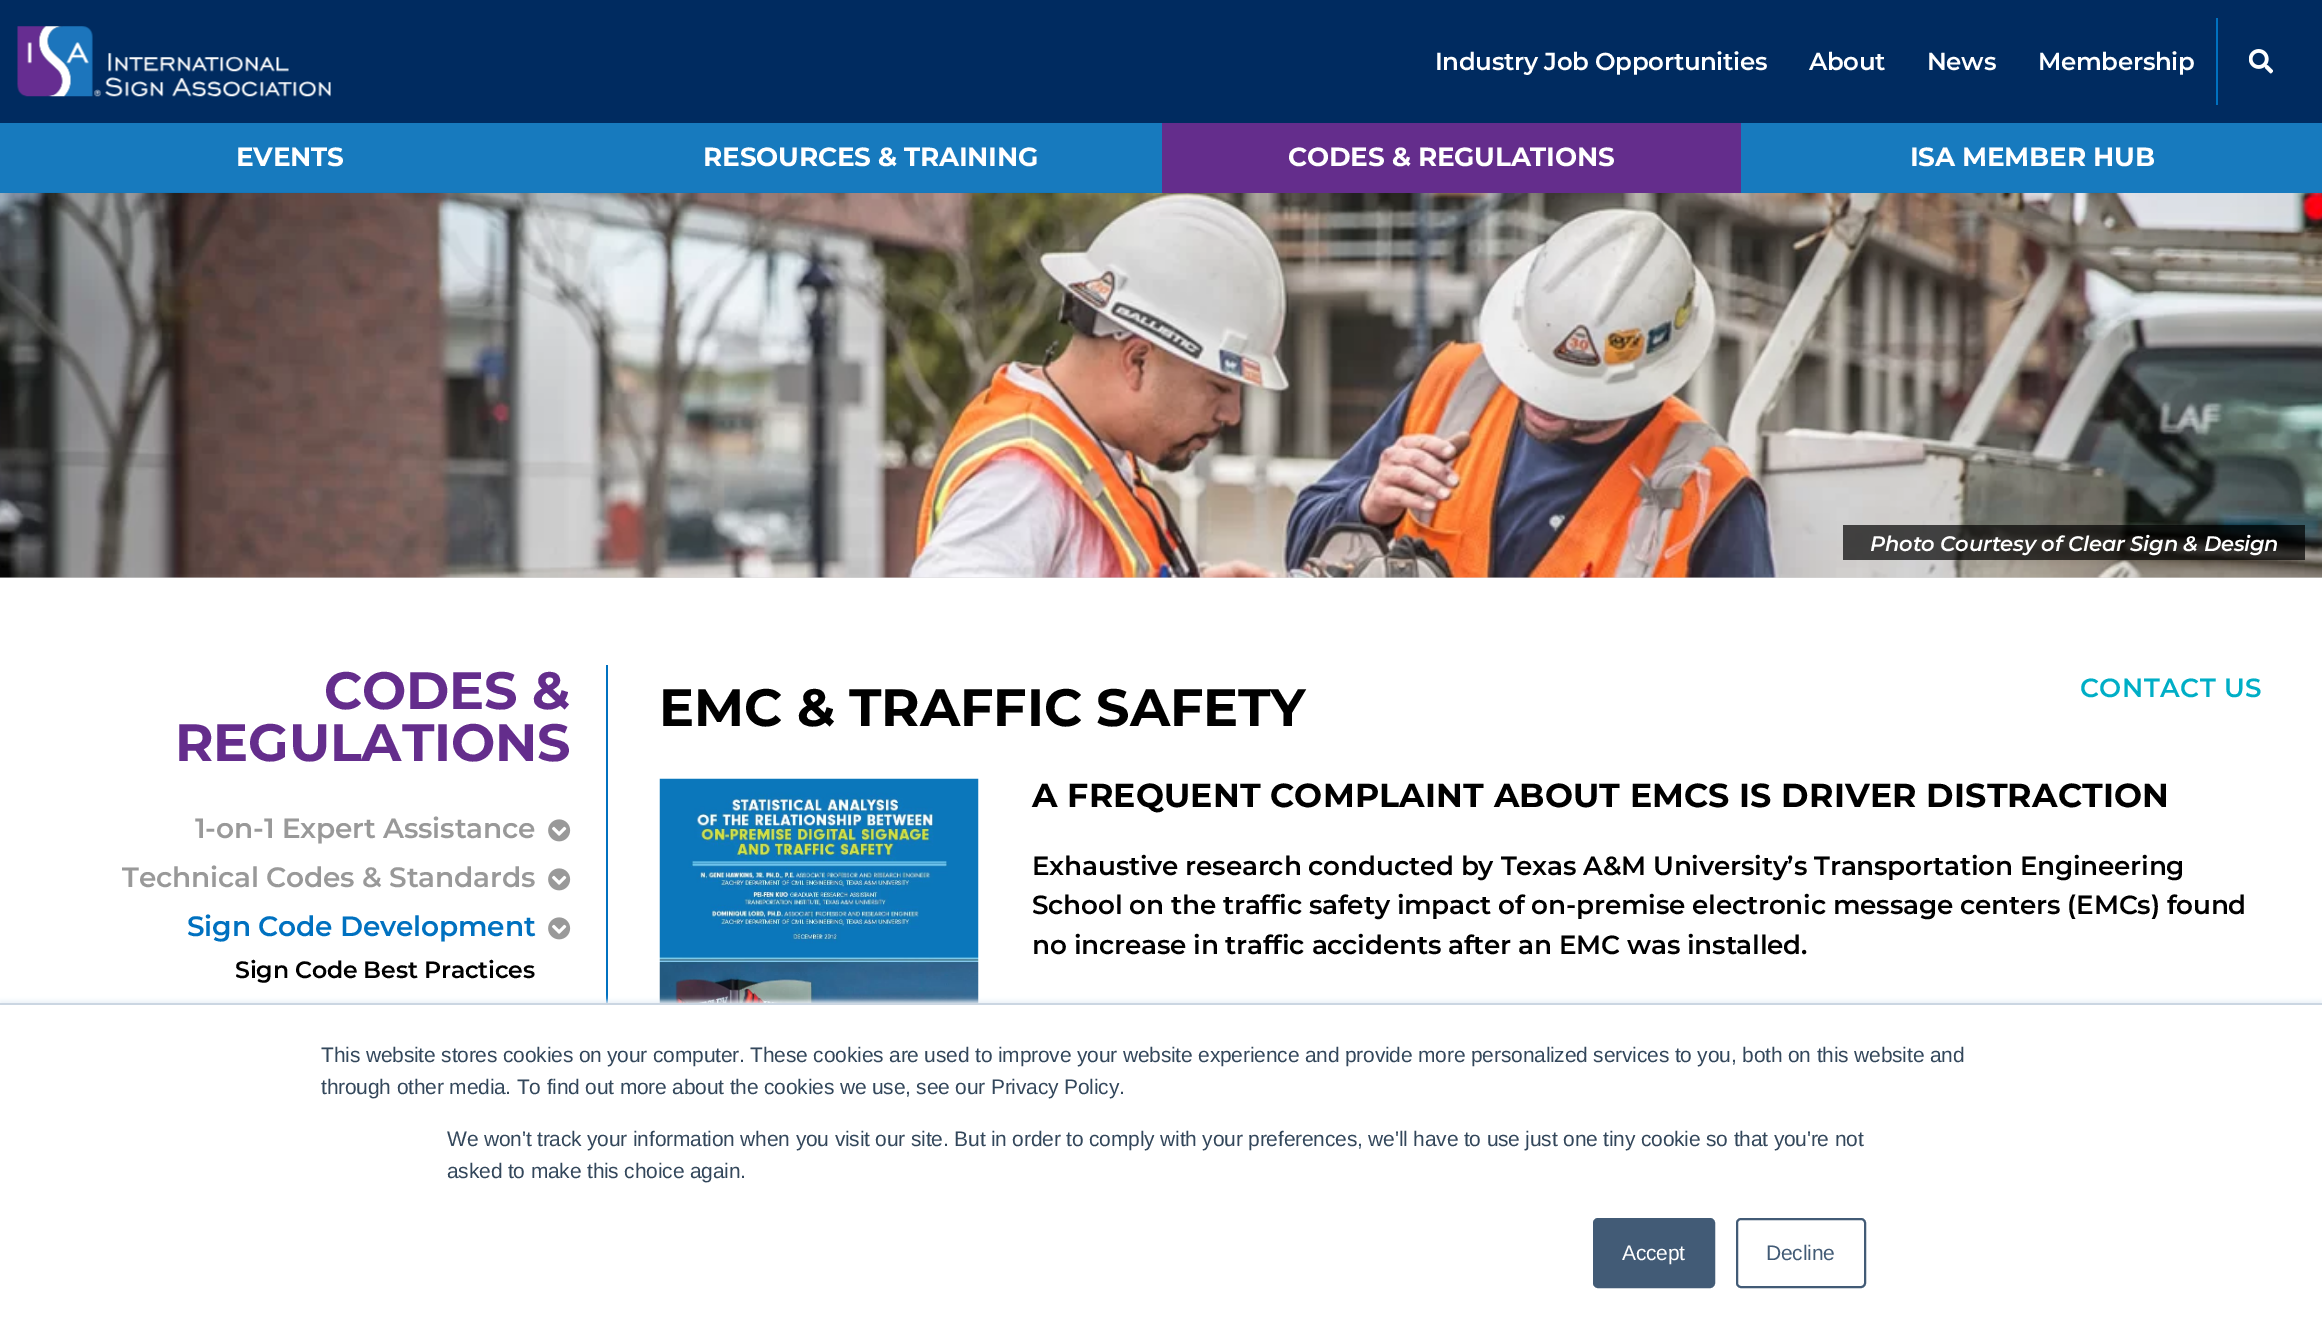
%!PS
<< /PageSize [2322 1332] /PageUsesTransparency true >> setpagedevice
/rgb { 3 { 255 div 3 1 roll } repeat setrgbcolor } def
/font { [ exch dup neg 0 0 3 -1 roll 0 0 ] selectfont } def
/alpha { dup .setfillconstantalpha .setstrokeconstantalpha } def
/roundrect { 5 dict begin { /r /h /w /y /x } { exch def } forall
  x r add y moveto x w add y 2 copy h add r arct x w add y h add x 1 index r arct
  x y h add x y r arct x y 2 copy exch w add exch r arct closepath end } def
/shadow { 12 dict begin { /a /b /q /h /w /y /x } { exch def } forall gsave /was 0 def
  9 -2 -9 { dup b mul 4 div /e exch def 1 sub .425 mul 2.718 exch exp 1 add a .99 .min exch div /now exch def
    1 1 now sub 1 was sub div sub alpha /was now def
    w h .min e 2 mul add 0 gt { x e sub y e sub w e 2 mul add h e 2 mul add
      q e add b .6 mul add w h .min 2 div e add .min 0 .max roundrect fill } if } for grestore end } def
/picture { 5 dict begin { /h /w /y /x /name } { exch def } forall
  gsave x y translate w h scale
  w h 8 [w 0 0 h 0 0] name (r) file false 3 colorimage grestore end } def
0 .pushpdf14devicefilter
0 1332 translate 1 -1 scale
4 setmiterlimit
218 218 218 rgb
0 0 2322 1332 rectfill
0 43 96 rgb
0 0 2322 123 rectfill
(img_01.rgb) 17 26 314 71 picture
0 113 192 rgb
2216 18 2 87 rectfill
(img_02.rgb) 2249 49 24 25 picture
(img_03.rgb) 0 192 2322 386 picture
0.95 alpha
13 117 188 rgb
0 123 2322 70 rectfill
1 alpha
100 45 140 rgb
1162 123 579 70 rectfill
0.69 alpha
0 0 0 rgb
1843 525 462 35 rectfill
1 alpha
255 255 255 rgb
0 578 2322 425 rectfill
0 113 192 rgb
606 665 2 338 rectfill
(img_04.rgb) 548 819 23 23 picture
(img_04.rgb) 548 868 23 23 picture
(img_04.rgb) 548 917 23 23 picture
(img_05.rgb) 659 778 320 225 picture
234 240 246 rgb
0 1001 2322 331 0 2.5 1 shadow
255 255 255 rgb
0 1005 2322 327 rectfill
203 214 226 rgb
0 1003 2322 2 rectfill
66 91 118 rgb
1594 1219 120 68 4 roundrect gsave fill grestore
2 setlinewidth
stroke
1737 1219 128 68 4 roundrect stroke
/Montserrat-SemiBold 24.5 font
255 255 255 rgb
1435 70 moveto -0.35 0 (Industry Job Opportunities) ashow
1809 70 moveto -0.35 0 (About) ashow
1927 70 moveto -0.35 0 (News) ashow
2038 70 moveto -0.35 0 (Membership) ashow
/Montserrat-Bold 26.25 font
236 166 moveto -0.18 0 (EVENTS) ashow
703 166 moveto -0.18 0 (RESOURCES & TRAINING) ashow
1288 166 moveto -0.18 0 (CODES & REGULATIONS) ashow
1910 166 moveto -0.18 0 (ISA MEMBER HUB) ashow
/Montserrat-SemiBoldItalic 21 font
1870 551 moveto -0.18 0 (Photo Courtesy of Clear Sign & Design) ashow
/Montserrat-Bold 52.5 font
100 45 140 rgb
324 709 moveto -0.18 0 (CODES &) ashow
175 761 moveto -0.18 0 (REGULATIONS) ashow
/Montserrat-SemiBold 28 font
153 153 153 rgb
195 838 moveto -0.18 0 (1-on-1 Expert Assistance) ashow
122 887 moveto -0.18 0 (Technical Codes & Standards) ashow
0 113 192 rgb
187 936 moveto -0.18 0 (Sign Code Development) ashow
/Montserrat-SemiBold 23.6 font
0 0 0 rgb
235 978 moveto -0.18 0 (Sign Code Best Practices) ashow
/Montserrat-Bold 52.5 font
659 726 moveto -0.18 0 (EMC & TRAFFIC SAFETY) ashow
/Montserrat-SemiBold 26.25 font
0 174 198 rgb
2080 697 moveto 0.5 0 (CONTACT US) ashow
/Montserrat-Bold 33.25 font
0 0 0 rgb
1032 807 moveto 0.18 0 (A FREQUENT COMPLAINT ABOUT EMCS IS DRIVER DISTRACTION) ashow
/Montserrat-SemiBold 26.25 font
1032 875 moveto -0.18 0 (Exhaustive research conducted by Texas A&M University’s Transportation Engineering) ashow
1032 914 moveto -0.18 0 (School on the traffic safety impact of on-premise electronic message centers \(EMCs\) found) ashow
1032 954 moveto -0.18 0 (no increase in traffic accidents after an EMC was installed.) ashow
/LiberationSans-Regular 21 font
51 71 91 rgb
321 1062 moveto -0.18 0 (This website stores cookies on your computer. These cookies are used to improve your website experience and provide more personalized services to you, both on this website and) ashow
321 1094 moveto -0.18 0 (through other media. To find out more about the cookies we use, see our Privacy Policy.) ashow
447 1146 moveto -0.18 0 (We won't track your information when you visit our site. But in order to comply with your preferences, we'll have to use just one tiny cookie so that you're not) ashow
447 1178 moveto -0.18 0 (asked to make this choice again.) ashow
255 255 255 rgb
1622 1260 moveto -0.18 0 (Accept) ashow
66 91 118 rgb
1766 1260 moveto -0.18 0 (Decline) ashow
.poppdf14devicefilter showpage
